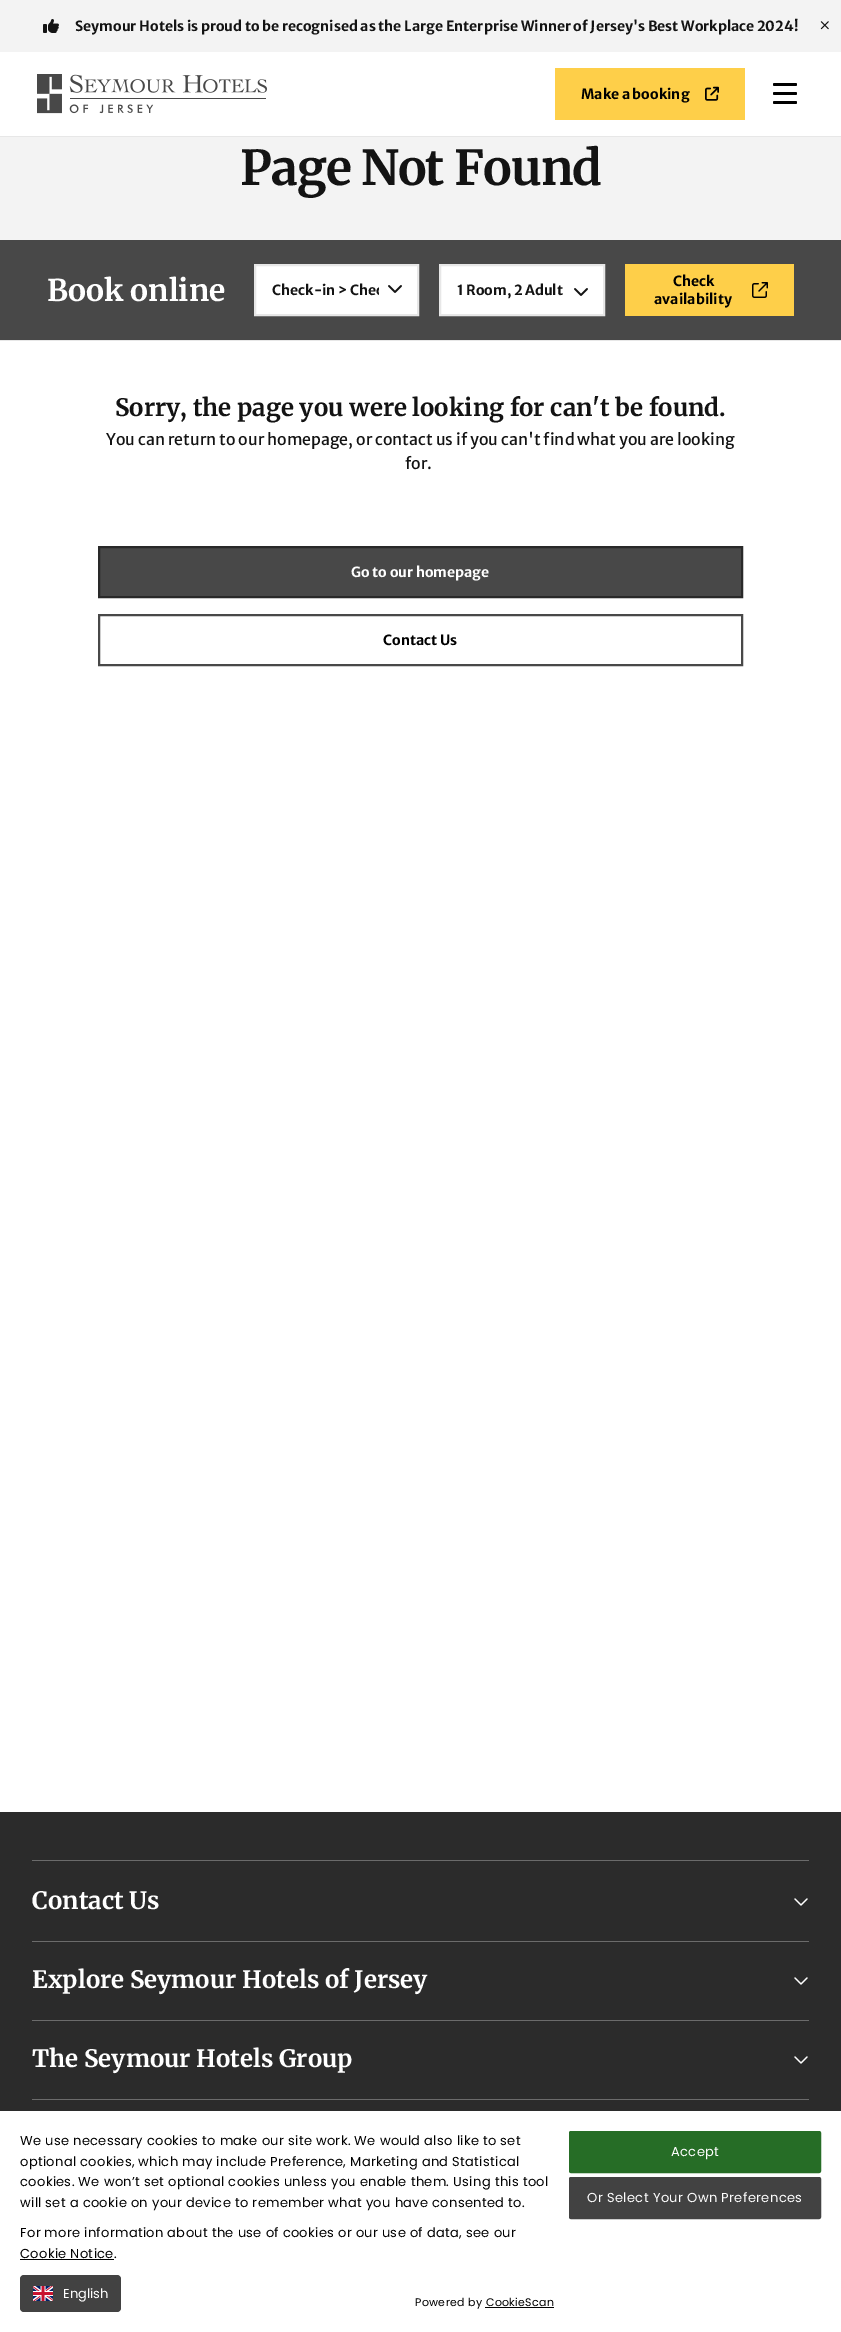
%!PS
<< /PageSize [841 2332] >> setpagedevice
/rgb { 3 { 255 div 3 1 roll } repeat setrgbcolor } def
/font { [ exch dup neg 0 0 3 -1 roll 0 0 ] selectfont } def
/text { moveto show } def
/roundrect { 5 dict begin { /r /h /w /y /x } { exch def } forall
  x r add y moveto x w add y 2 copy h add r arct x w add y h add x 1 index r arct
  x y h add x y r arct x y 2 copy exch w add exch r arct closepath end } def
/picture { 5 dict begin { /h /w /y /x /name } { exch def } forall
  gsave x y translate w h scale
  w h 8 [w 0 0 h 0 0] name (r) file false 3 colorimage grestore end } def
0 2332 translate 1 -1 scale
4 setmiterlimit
255 255 255 rgb
0 0 841 2332 rectfill
243 243 243 rgb
0 0 841 52 rectfill
(img_01.rgb) 43 19 16 14 picture
(img_02.rgb) 820 21 9 9 picture
231 231 231 rgb
0 136 841 1 rectfill
(img_03.rgb) 37 74 230 40 picture
254 207 73 rgb
555 68 190 52 rectfill
(img_04.rgb) 705 86 14 15 picture
0 0 0 rgb
773 92 24 3 1.5 roundrect fill
773 83 24 3 1.5 roundrect fill
773 101 24 3 1.5 roundrect fill
243 243 243 rgb
0 137 841 103 rectfill
72 72 72 rgb
0 240 841 100 rectfill
231 231 231 rgb
0 340 841 1 rectfill
255 255 255 rgb
255 265 moveto 163 0 rlineto 0 50 rlineto -163 0 rlineto closepath gsave fill grestore
231 231 231 rgb
2 setlinewidth
stroke
(img_05.rgb) 388 285 14 8 picture
255 255 255 rgb
440 265 moveto 164 0 rlineto 0 50 rlineto -164 0 rlineto closepath gsave fill grestore
231 231 231 rgb
stroke
(img_05.rgb) 574 288 14 8 picture
254 207 73 rgb
625 264 169 52 rectfill
(img_06.rgb) 752 282 16 16 picture
72 72 72 rgb
99 547 moveto 643 0 rlineto 0 50 rlineto -643 0 rlineto closepath gsave fill grestore
41 41 41 rgb
stroke
72 72 72 rgb
99 615 643 50 rectstroke
43 43 43 rgb
0 1812 841 299 rectfill
107 107 107 rgb
32 1860 777 1 rectfill
32 1941 777 1 rectfill
(img_07.rgb) 794 1898 14 8 picture
32 2020 777 1 rectfill
(img_07.rgb) 794 1977 14 8 picture
32 2099 777 1 rectfill
(img_07.rgb) 794 2056 14 8 picture
0 0 0 rgb
20 2259 94 1 rectfill
66 66 66 rgb
20 2275 101 37 4 roundrect fill
21 2276 99 35 rectfill
(img_08.rgb) 33 2286 20 15 picture
0 0 0 rgb
485 2307 69 1 rectfill
38 109 38 rgb
569.5 2131.5 251 41 1.5 roundrect gsave fill grestore
1 setlinewidth
stroke
66 66 66 rgb
569.5 2177.5 251 41 1.5 roundrect gsave fill grestore
stroke
/MerriweatherSans-Bold 14 font
19 19 19 rgb
(Seymour Hotels is proud to be recognised as the Large Enterprise Winner of Jersey's Best Workplace 2024!) 75 31 text
0 0 0 rgb
(Make a booking) 581 99 text
/Merriweather-Light 48 font
19 19 19 rgb
240 185 moveto -1 0 (Page Not Found) ashow
/Merriweather-Light 30 font
255 255 255 rgb
(Book online) 47 301 text
/MerriweatherSans-Bold 14 font
19 19 19 rgb
(Check-in > Chec) 272 295 text
255 255 255 rgb
379 287 4 9 rectfill
19 19 19 rgb
(1 Room, 2 Adult) 457 295 text
0 0 0 rgb
(Check) 673 286 text
(availability) 654 304 text
/Merriweather-Light 24 font
19 19 19 rgb
(Sorry, the page you were looking for can't be found.) 115 416 text
/MerriweatherSans-Regular 16 font
(You can return to our homepage, or contact us if you can't find what you are looking) 106 445 text
(for.) 405 469 text
/MerriweatherSans-Bold 14 font
255 255 255 rgb
(Go to our homepage) 351 577 text
0 0 0 rgb
(Contact Us) 383 645 text
/Merriweather-Light 24 font
255 255 255 rgb
(Contact Us) 32 1909 text
(Explore Seymour Hotels of Jersey) 32 1988 text
(The Seymour Hotels Group) 32 2067 text
/Poppins-Regular 13 font
0 0 0 rgb
20 2145 moveto 0.33 0 (We use necessary cookies to make our site work. We would also like to set) ashow
20 2166 moveto 0.33 0 (optional cookies, which may include Preference, Marketing and Statistical) ashow
20 2186 moveto 0.33 0 (cookies. We won’t set optional cookies unless you enable them. Using this tool) ashow
20 2207 moveto 0.33 0 (will set a cookie on your device to remember what you have consented to.) ashow
20 2237 moveto 0.33 0 (For more information about the use of cookies or our use of data, see our) ashow
20 2258 moveto 0.33 0 (Cookie Notice.) ashow
255 255 255 rgb
(English) 63 2298 text
/Poppins-Regular 11 font
0 0 0 rgb
415 2306 moveto 0.33 0 (Powered by CookieScan) ashow
/Poppins-Regular 13 font
255 255 255 rgb
671 2156 moveto 0.4 0 (Accept) ashow
587 2202 moveto 0.4 0 (Or Select Your Own Preferences) ashow
showpage
